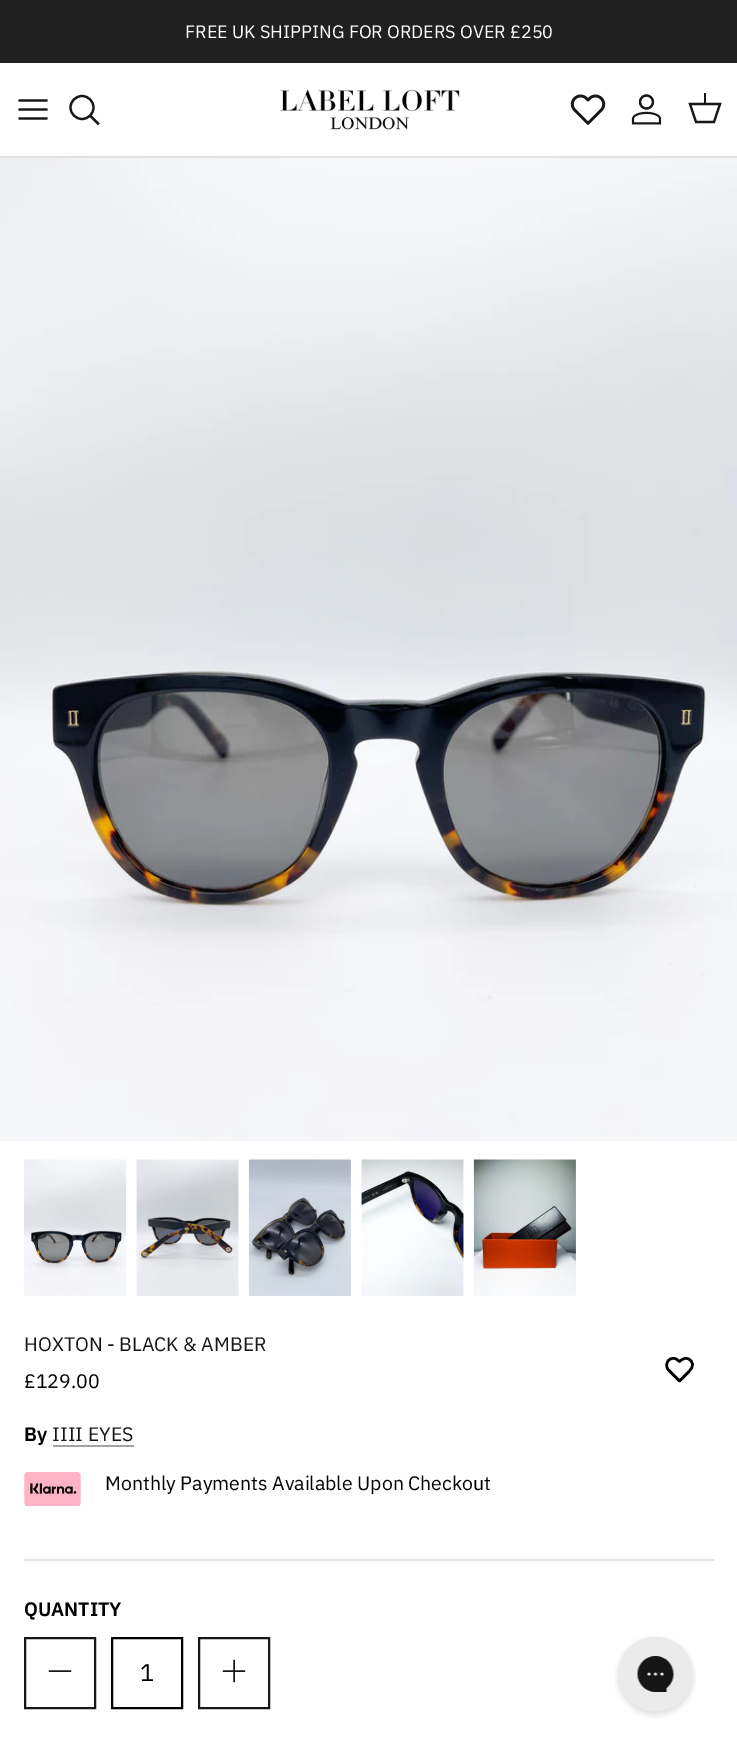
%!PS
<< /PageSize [737 1751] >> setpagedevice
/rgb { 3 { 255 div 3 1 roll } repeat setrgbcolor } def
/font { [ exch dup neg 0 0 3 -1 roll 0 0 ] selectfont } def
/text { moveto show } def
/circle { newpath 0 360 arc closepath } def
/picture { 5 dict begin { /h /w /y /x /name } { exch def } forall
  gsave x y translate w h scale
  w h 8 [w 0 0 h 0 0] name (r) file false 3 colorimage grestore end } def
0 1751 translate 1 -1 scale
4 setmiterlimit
255 255 255 rgb
0 0 737 1751 rectfill
32 32 32 rgb
0 0 737 63 rectfill
226 226 226 rgb
0 156 737 2 rectfill
23 23 23 rgb
2.2 setlinewidth
1 setlinecap
1 setlinejoin
19.5 109.5 moveto 27 0 rlineto 19.5 100.5 moveto 27 0 rlineto 19.5 118.5 moveto 27 0 rlineto stroke
0 setlinecap
0 setlinejoin
82 107.5 11.5 circle stroke
2 setlinecap
91.5 117 moveto 6.5 6.5 rlineto stroke
(img_01.rgb) 280 89 180 41 picture
(img_02.rgb) 570 94 36 31 picture
(img_03.rgb) 631 94 31 31 picture
0 setlinecap
690 104 moveto 30 0 rlineto -6 18 rlineto -18 0 rlineto closepath stroke
704 93 2 12 rectfill
(img_04.rgb) 0 158 737 983 picture
(img_05.rgb) 24 1159 102 137 picture
(img_06.rgb) 136 1159 103 137 picture
(img_07.rgb) 248 1159 103 137 picture
(img_08.rgb) 361 1159 103 137 picture
(img_09.rgb) 473 1159 103 137 picture
162 162 162 rgb
53 1445 81 2 rectfill
(img_10.rgb) 24 1472 57 34 picture
226 226 226 rgb
24 1559 690 2 rectfill
0 0 0 rgb
2.5 setlinewidth
1 setlinecap
1 setlinejoin
690.5 1360.5 moveto -3.5 -4 -8 -2 -11 1 rcurveto -1.5 -1 rlineto -2.5 -3 -7 -3 -9.5 0 rcurveto -2.5 2.5 -2.5 7 0 9.5 rcurveto 11 11 rlineto 6.5 -6.5 rlineto 3.5 -3.5 10 -9 4.5 -14 rcurveto closepath stroke
23 23 23 rgb
2 setlinewidth
0 setlinecap
0 setlinejoin
25 1638 70 70 rectstroke
1.5 setlinewidth
1 setlinecap
1 setlinejoin
49.5 1671 moveto 21 0 rlineto stroke
0 0 0 rgb
2 setlinewidth
0 setlinecap
0 setlinejoin
112 1638 70 70 rectstroke
23 23 23 rgb
199 1638 70 70 rectstroke
1.5 setlinewidth
1 setlinecap
1 setlinejoin
234 1660.5 moveto 0 21 rlineto 223.5 1671 moveto 21 0 rlineto stroke
(img_11.rgb) 615 1636 81 82 picture
/IBMPlexSans-Regular 18 font
255 255 255 rgb
(FREE UK SHIPPING FOR ORDERS OVER £250) 185 38 text
/IBMPlexSans-Regular 19.5 font
23 23 23 rgb
(HOXTON - BLACK & AMBER) 24 1351 text
0 0 0 rgb
(£129.00) 24 1388 text
/IBMPlexSans-SemiBold 19.5 font
(By) 24 1441 text
/IBMPlexSans-Regular 19.5 font
23 23 23 rgb
(IIII EYES) 52 1441 text
0 0 0 rgb
(Monthly Payments Available Upon Checkout) 105 1490 text
/IBMPlexSans-SemiBold 19.5 font
(QUANTITY) 24 1616 text
/IBMPlexSans-Regular 24 font
(1) 140 1681 text
showpage
